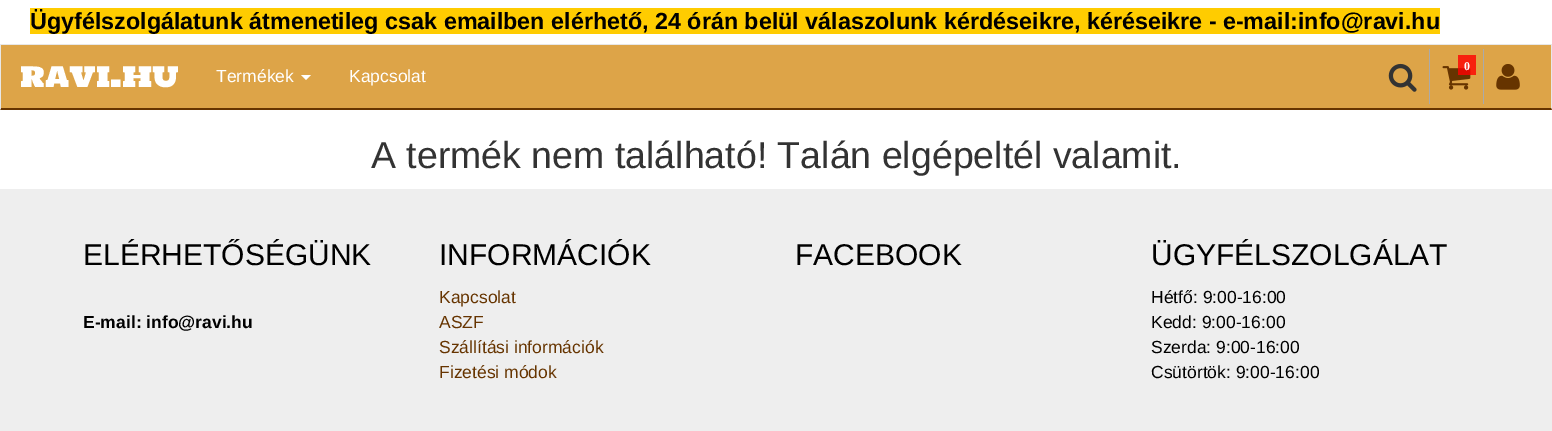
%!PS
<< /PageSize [1552 431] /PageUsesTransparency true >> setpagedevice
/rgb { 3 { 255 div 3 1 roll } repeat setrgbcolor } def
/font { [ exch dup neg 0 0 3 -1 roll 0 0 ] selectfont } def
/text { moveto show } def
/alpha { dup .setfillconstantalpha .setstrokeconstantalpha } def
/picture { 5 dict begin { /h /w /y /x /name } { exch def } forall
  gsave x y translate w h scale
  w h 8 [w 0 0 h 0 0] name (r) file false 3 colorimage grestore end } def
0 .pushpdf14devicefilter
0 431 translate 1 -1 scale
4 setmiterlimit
255 255 255 rgb
0 0 1552 431 rectfill
255 204 0 rgb
30 8 1410 26 rectfill
221 164 72 rgb
1 45 1550 63 rectfill
231 231 231 rgb
0 44 1552 1 rectfill
1552 44 moveto 0 66 rlineto -1 -2 rlineto 0 -63 rlineto closepath fill
102 52 0 rgb
1552 110 moveto -1552 0 rlineto 1 -2 rlineto 1550 0 rlineto closepath fill
231 231 231 rgb
0 110 moveto 0 -66 rlineto 1 1 rlineto 0 63 rlineto closepath fill
255 255 255 rgb
301 75 moveto 10 0 rlineto -5 5 rlineto closepath fill
(img_01.rgb) 1388 63 29 29 picture
170 170 170 rgb
1429 49 1 55 rectfill
(img_02.rgb) 1442 66 29 24 picture
0.8 alpha
255 0 0 rgb
1458 55 18 20 rectfill
1 alpha
170 170 170 rgb
1483 49 1 55 rectfill
(img_03.rgb) 1496 64 24 26 picture
238 238 238 rgb
0 189 1552 242 rectfill
/LiberationSans-Bold 23.33 font
0 0 0 rgb
(Ügyfélszolgálatunk átmenetileg csak emailben elérhető, 24 órán belül válaszolunk kérdéseikre, kéréseikre - e-mail:info@ravi.hu) 30 29 text
/HoltwoodOneSC-Regular 30 font
255 255 255 rgb
(ravi.hu) 20 87 text
/LiberationSans-Regular 17.5 font
(Termékek) 216 82 text
(Kapcsolat) 349 82 text
/LiberationSerif-Bold 12 font
(0) 1464 70 text
/LiberationSans-Regular 37.5 font
51 51 51 rgb
(A termék nem található! Talán elgépeltél valamit.) 371 168 text
/LiberationSans-Regular 30 font
0 0 0 rgb
(ELÉRHETŐSÉGÜNK) 83 265 text
/LiberationSans-Bold 17.5 font
(E-mail: info@ravi.hu) 83 328 text
/LiberationSans-Regular 30 font
(INFORMÁCIÓK) 439 265 text
/LiberationSans-Regular 17.5 font
102 52 0 rgb
(Kapcsolat) 439 303 text
(ASZF) 439 328 text
(Szállítási információk) 439 353 text
(Fizetési módok) 439 378 text
/LiberationSans-Regular 30 font
0 0 0 rgb
(FACEBOOK) 795 265 text
(ÜGYFÉLSZOLGÁLAT) 1151 265 text
/LiberationSans-Regular 17.5 font
(Hétfő: 9:00-16:00) 1151 303 text
(Kedd: 9:00-16:00) 1151 328 text
(Szerda: 9:00-16:00) 1151 353 text
(Csütörtök: 9:00-16:00) 1151 378 text
.poppdf14devicefilter showpage
